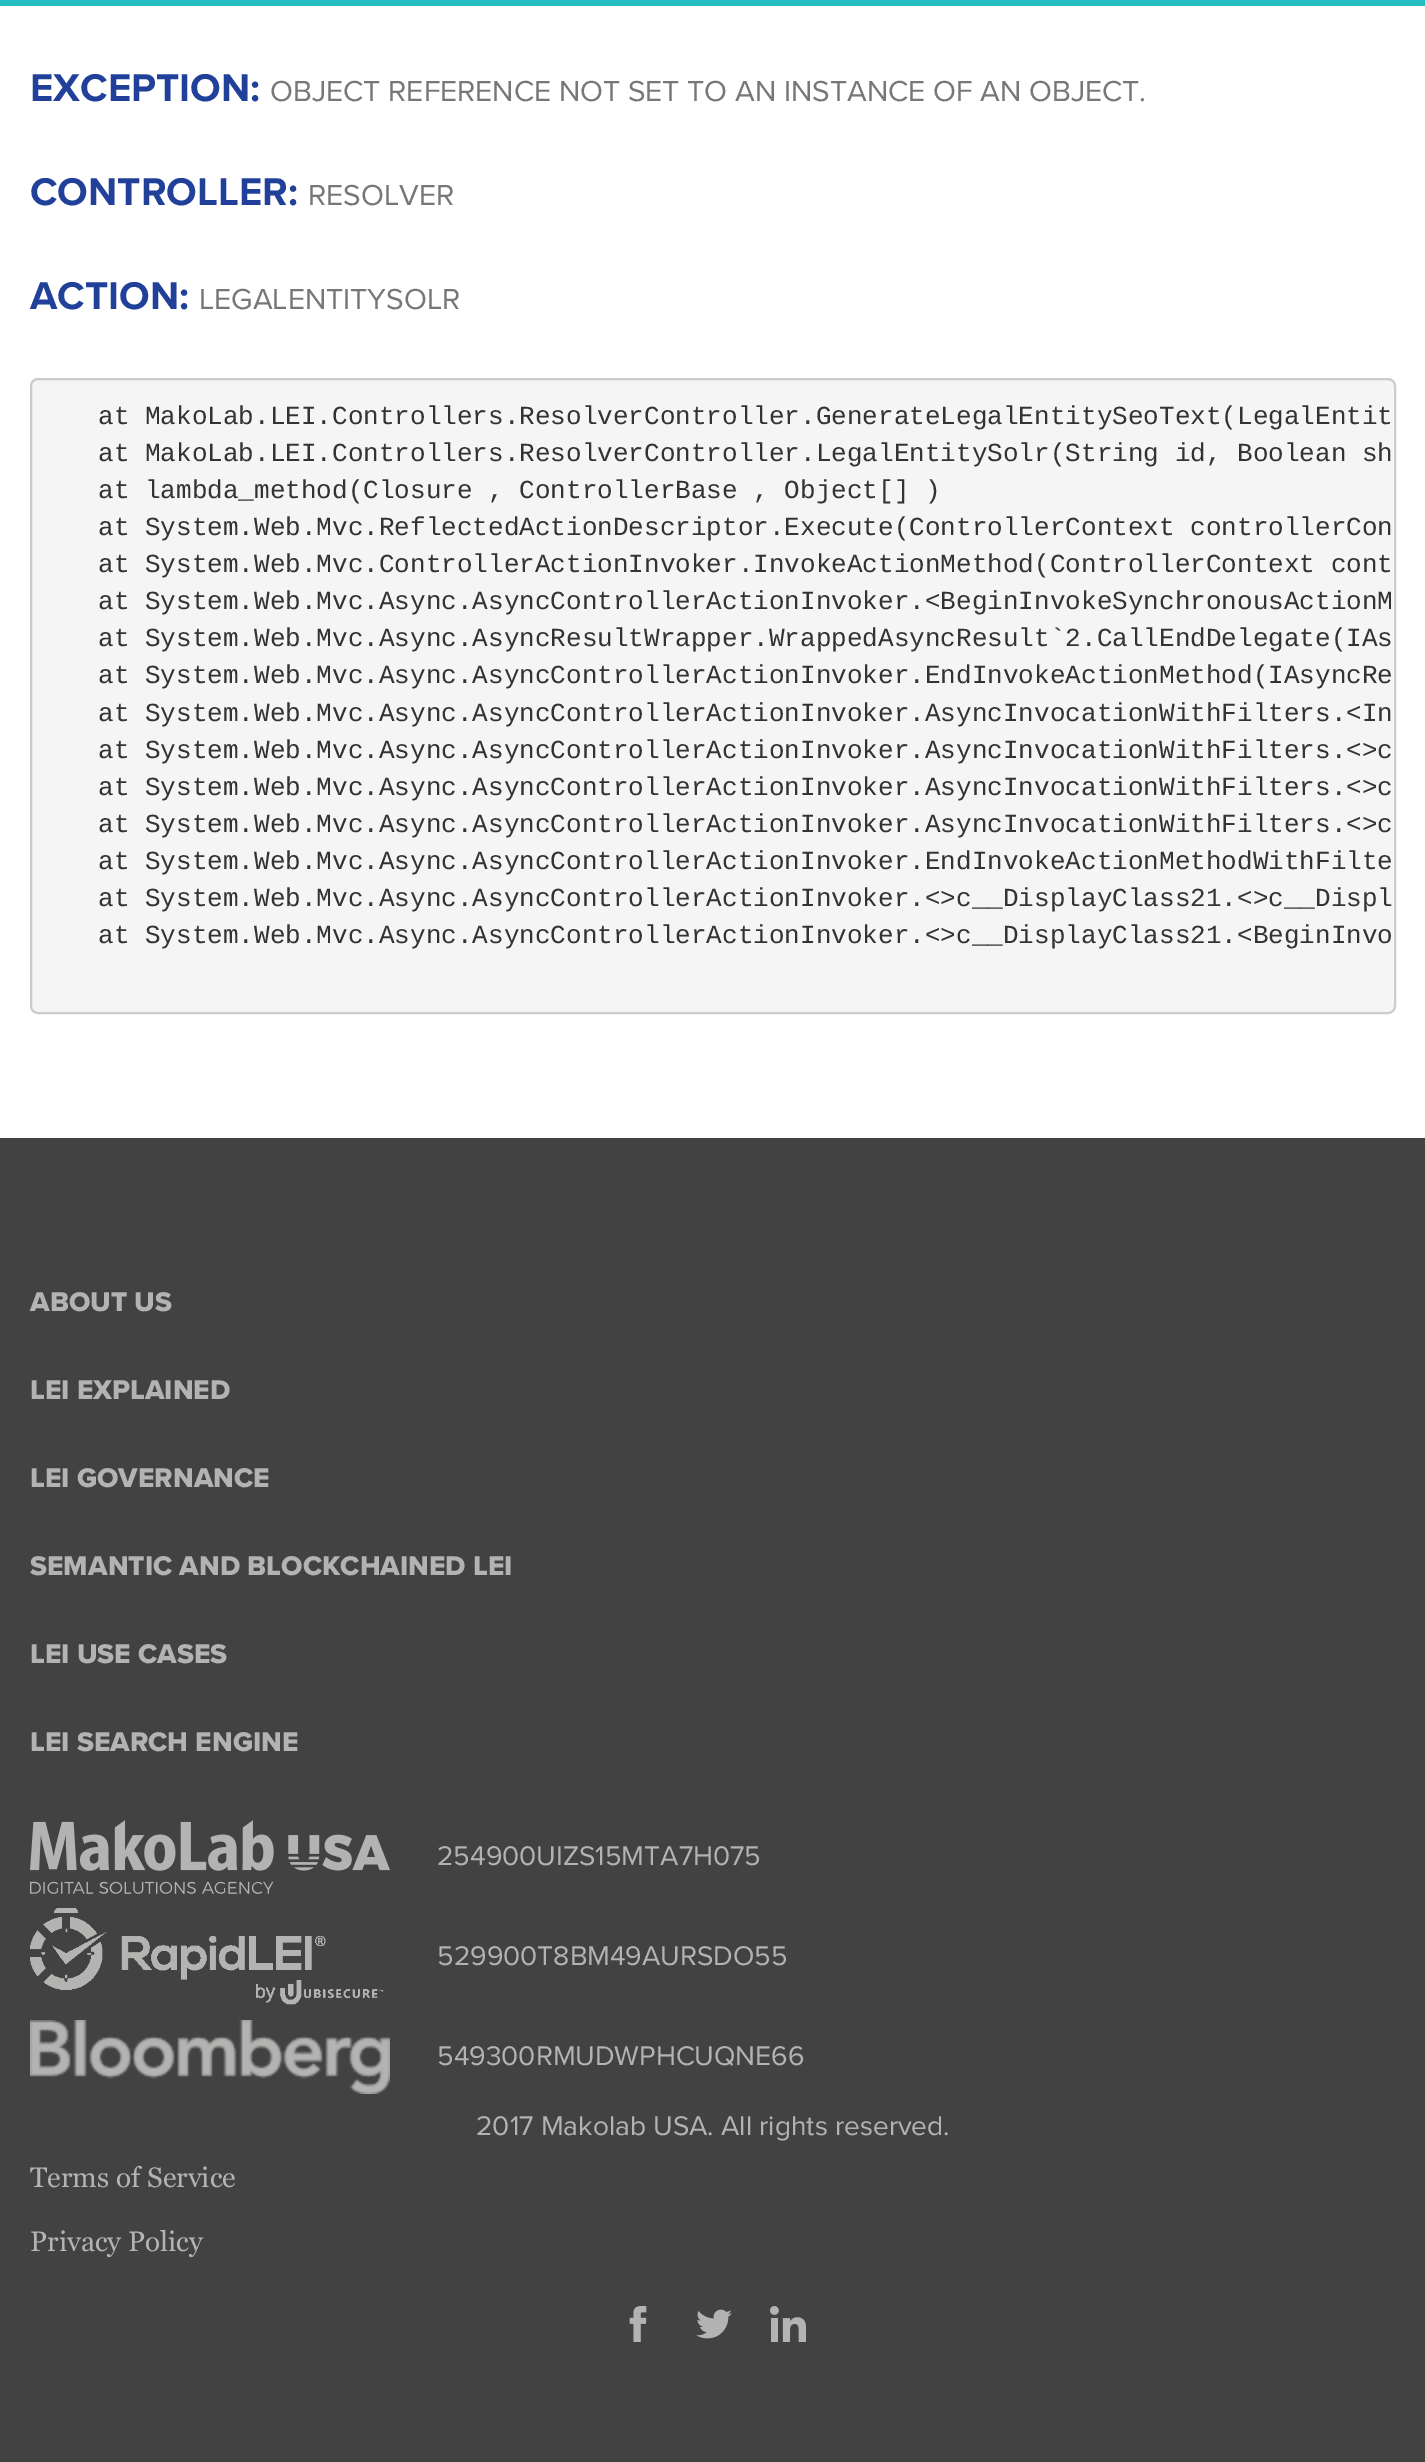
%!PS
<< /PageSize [1425 2462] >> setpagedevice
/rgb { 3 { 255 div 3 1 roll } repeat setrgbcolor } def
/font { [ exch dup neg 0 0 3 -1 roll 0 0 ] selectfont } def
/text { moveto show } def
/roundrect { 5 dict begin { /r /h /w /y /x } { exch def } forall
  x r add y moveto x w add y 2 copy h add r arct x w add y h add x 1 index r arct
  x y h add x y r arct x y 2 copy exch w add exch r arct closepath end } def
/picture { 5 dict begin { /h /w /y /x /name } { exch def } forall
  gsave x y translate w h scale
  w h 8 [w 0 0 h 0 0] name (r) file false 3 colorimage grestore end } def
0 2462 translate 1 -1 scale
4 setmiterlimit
255 255 255 rgb
0 0 1425 2462 rectfill
38 189 192 rgb
0 0 1425 6 rectfill
245 245 245 rgb
31 379 1364 634 7 roundrect gsave fill grestore
204 204 204 rgb
2 setlinewidth
stroke
66 66 66 rgb
0 1138 1425 1324 rectfill
(img_01.rgb) 30 1820 360 74 picture
(img_02.rgb) 30 1908 354 97 picture
(img_03.rgb) 30 2020 360 74 picture
(img_04.rgb) 629 2306 18 36 picture
(img_05.rgb) 696 2309 36 30 picture
(img_06.rgb) 770 2306 36 36 picture
/ProximaNova-Bold 40 font
33 64 154 rgb
(EXCEPTION:) 30 101 text
/ProximaNova-Regular 30 font
119 119 119 rgb
(OBJECT REFERENCE NOT SET TO AN INSTANCE OF AN OBJECT.) 270 101 text
/ProximaNova-Bold 40 font
33 64 154 rgb
(CONTROLLER:) 30 205 text
/ProximaNova-Regular 30 font
119 119 119 rgb
(RESOLVER) 308 205 text
/ProximaNova-Bold 40 font
33 64 154 rgb
(ACTION:) 30 309 text
/ProximaNova-Regular 30 font
119 119 119 rgb
(LEGALENTITYSOLR) 199 309 text
/LiberationMono-Regular 26 font
51 51 51 rgb
(at MakoLab.LEI.Controllers.ResolverController.GenerateLegalEntitySeoText\(LegalEntit) 98 424 text
(at MakoLab.LEI.Controllers.ResolverController.LegalEntitySolr\(String id, Boolean sh) 98 461 text
(at lambda_method\(Closure , ControllerBase , Object[] \)) 98 498 text
(at System.Web.Mvc.ReflectedActionDescriptor.Execute\(ControllerContext controllerCon) 98 535 text
(at System.Web.Mvc.ControllerActionInvoker.InvokeActionMethod\(ControllerContext cont) 98 572 text
(at System.Web.Mvc.Async.AsyncControllerActionInvoker.<BeginInvokeSynchronousActionM) 98 609 text
(at System.Web.Mvc.Async.AsyncResultWrapper.WrappedAsyncResult`2.CallEndDelegate\(IAs) 98 646 text
(at System.Web.Mvc.Async.AsyncControllerActionInvoker.EndInvokeActionMethod\(IAsyncRe) 98 683 text
(at System.Web.Mvc.Async.AsyncControllerActionInvoker.AsyncInvocationWithFilters.<In) 98 721 text
(at System.Web.Mvc.Async.AsyncControllerActionInvoker.AsyncInvocationWithFilters.<>c) 98 758 text
(at System.Web.Mvc.Async.AsyncControllerActionInvoker.AsyncInvocationWithFilters.<>c) 98 795 text
(at System.Web.Mvc.Async.AsyncControllerActionInvoker.AsyncInvocationWithFilters.<>c) 98 832 text
(at System.Web.Mvc.Async.AsyncControllerActionInvoker.EndInvokeActionMethodWithFilte) 98 869 text
(at System.Web.Mvc.Async.AsyncControllerActionInvoker.<>c__DisplayClass21.<>c__Displ) 98 906 text
(at System.Web.Mvc.Async.AsyncControllerActionInvoker.<>c__DisplayClass21.<BeginInvo) 98 943 text
/ProximaNova-ExtraBold 28 font
179 179 179 rgb
(ABOUT US) 30 1311 text
(LEI EXPLAINED) 30 1399 text
(LEI GOVERNANCE) 30 1487 text
(SEMANTIC AND BLOCKCHAINED LEI) 30 1575 text
(LEI USE CASES) 30 1663 text
(LEI SEARCH ENGINE) 30 1751 text
/ProximaNova-Regular 28 font
(254900UIZS15MTA7H075) 437 1865 text
(529900T8BM49AURSDO55) 437 1965 text
(549300RMUDWPHCUQNE66) 437 2065 text
(2017 Makolab USA. All rights reserved.) 476 2135 text
/Georgia-Regular 28 font
(Terms of Service) 30 2187 text
(Privacy Policy) 30 2251 text
showpage
